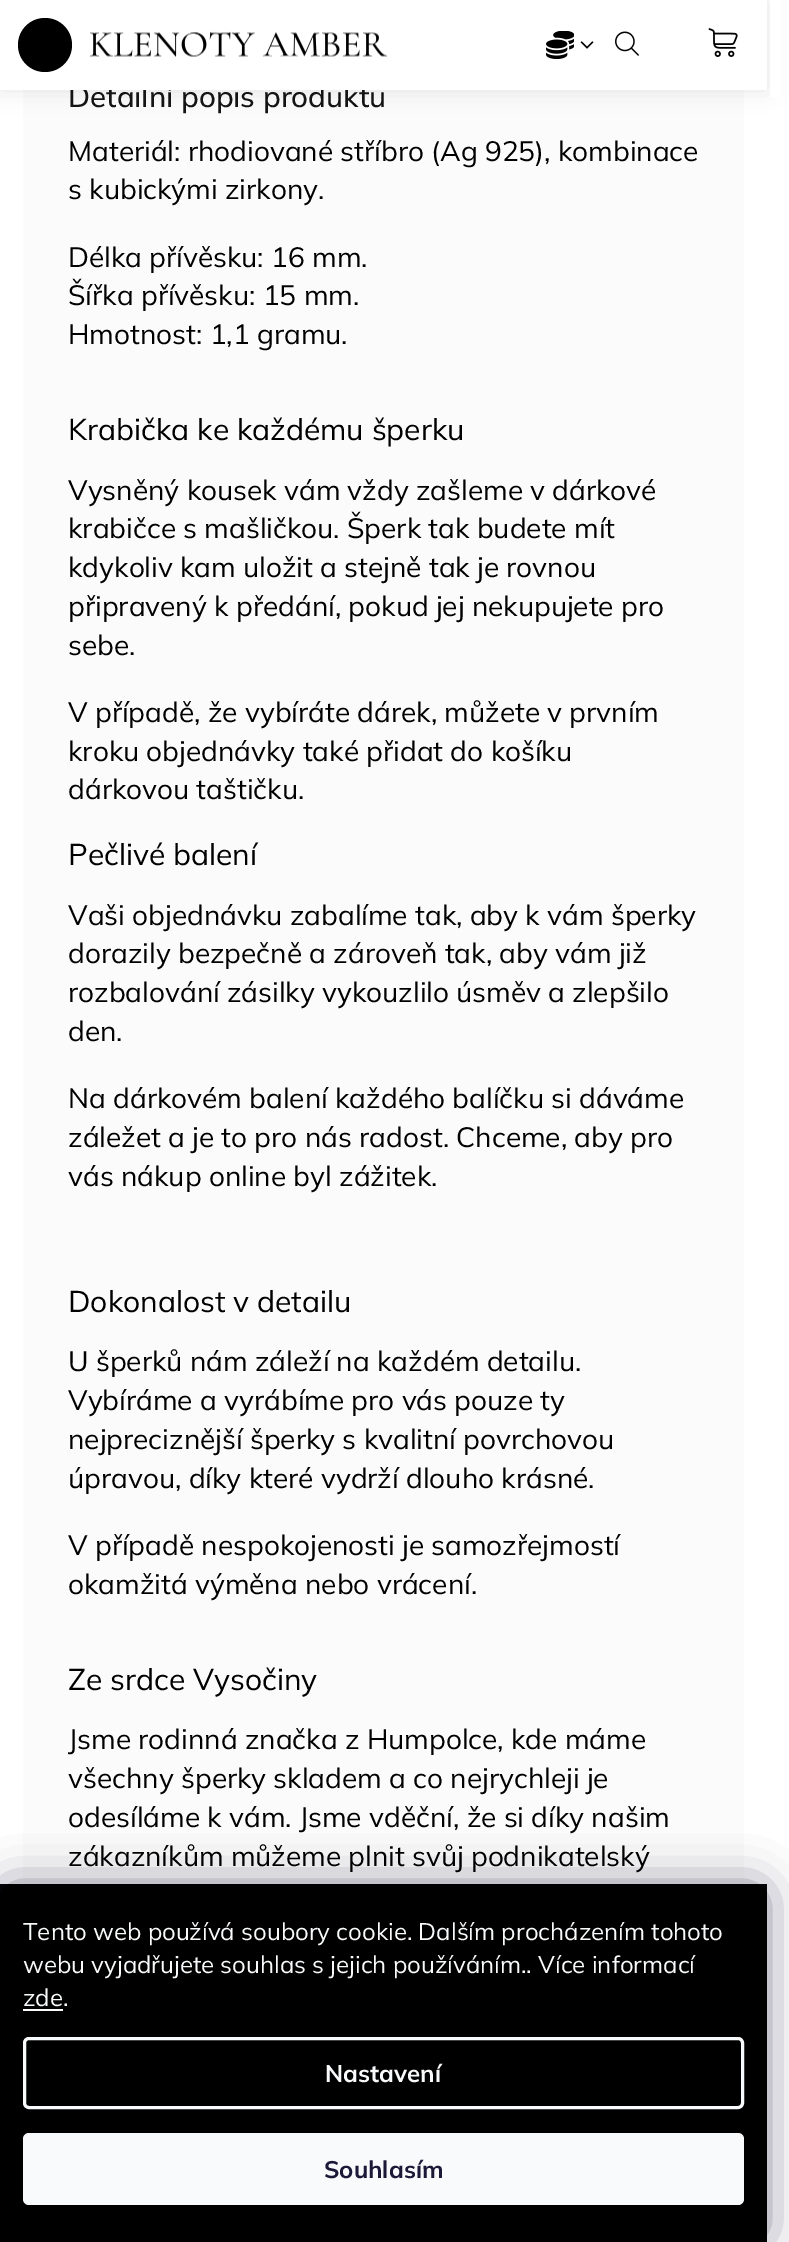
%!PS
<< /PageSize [789 2242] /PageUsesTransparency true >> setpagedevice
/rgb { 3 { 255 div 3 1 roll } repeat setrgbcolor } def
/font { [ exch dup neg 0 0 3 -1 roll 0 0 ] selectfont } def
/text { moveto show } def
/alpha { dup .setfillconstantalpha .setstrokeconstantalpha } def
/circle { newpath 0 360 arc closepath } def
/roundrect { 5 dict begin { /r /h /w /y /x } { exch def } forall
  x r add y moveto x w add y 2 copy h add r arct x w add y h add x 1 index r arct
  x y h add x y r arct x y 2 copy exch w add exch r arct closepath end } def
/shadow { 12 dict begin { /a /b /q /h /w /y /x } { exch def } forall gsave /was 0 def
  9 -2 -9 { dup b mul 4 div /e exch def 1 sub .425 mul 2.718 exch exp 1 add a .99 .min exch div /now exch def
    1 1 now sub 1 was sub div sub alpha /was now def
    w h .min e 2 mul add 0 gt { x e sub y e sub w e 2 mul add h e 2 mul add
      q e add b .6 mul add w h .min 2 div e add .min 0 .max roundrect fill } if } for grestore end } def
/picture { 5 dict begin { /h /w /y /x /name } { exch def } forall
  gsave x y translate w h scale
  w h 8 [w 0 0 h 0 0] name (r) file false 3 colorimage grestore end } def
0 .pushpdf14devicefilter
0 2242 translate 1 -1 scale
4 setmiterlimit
255 255 255 rgb
0 0 789 2242 rectfill
251 251 251 rgb
23 90 721 1794 rectfill
0 0 0 rgb
0 0 767 90 0 11 0.1 shadow
255 255 255 rgb
770 0 11 97 rectfill
0 0 0 rgb
0 1884 767 12 rectfill
27 25 57 rgb
0 1884 767 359 12 22.5 0.5 shadow
0 0 0 rgb
12 1884 moveto 743 0 rlineto 6.5 0 12 5.5 12 12 rcurveto 0 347 rlineto -767 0 rlineto 0 -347 rlineto 0 -6.5 5.5 -12 12 -12 rcurveto closepath fill
248 250 251 rgb
23 2009 40 2 rectfill
3 setlinewidth
24.5 2038.5 718 69 4.5 roundrect stroke
23 2133 721 72 6 roundrect fill
/Mulish-Medium 29.4 font
20 20 20 rgb
(Detailní popis produktu) 68 107 text
255 255 255 rgb
0 0 767 90 rectfill
(img_05.rgb) 708 28 30 29 picture
(img_04.rgb) 90 31 297 26 picture
(img_02.rgb) 546 31 28 28 picture
(img_03.rgb) 580 41 14 8 picture
0 0 0 rgb
45 45 27 circle fill
(img_01.rgb) 615 31 24 25 picture
/Mulish-Regular 28 font
(Materiál: rhodiované stříbro \(Ag 925\), kombinace) 68 161 text
(s kubickými zirkony.) 68 199 text
(Délka přívěsku: 16 mm.) 68 267 text
(Šířka přívěsku: 15 mm.) 68 305 text
(Hmotnost: 1,1 gramu.) 68 344 text
/Mulish-Regular 30 font
(Krabička ke každému šperku) 68 440 text
/Mulish-Regular 28 font
(Vysněný kousek vám vždy zašleme v dárkové) 68 500 text
(krabičce s mašličkou. Šperk tak budete mít) 68 538 text
(kdykoliv kam uložit a stejně tak je rovnou) 68 577 text
(připravený k předání, pokud jej nekupujete pro) 68 616 text
(sebe.) 68 655 text
(V případě, že vybíráte dárek, můžete v prvním) 68 722 text
(kroku objednávky také přidat do košíku) 68 761 text
(dárkovou taštičku.) 68 799 text
/Mulish-Regular 30 font
(Pečlivé balení) 68 865 text
/Mulish-Regular 28 font
(Vaši objednávku zabalíme tak, aby k vám šperky) 68 925 text
(dorazily bezpečně a zároveň tak, aby vám již) 68 963 text
(rozbalování zásilky vykouzlilo úsměv a zlepšilo) 68 1002 text
(den.) 68 1041 text
(Na dárkovém balení každého balíčku si dáváme) 68 1108 text
(záležet a je to pro nás radost. Chceme, aby pro) 68 1147 text
(vás nákup online byl zážitek.) 68 1186 text
/Mulish-Regular 30 font
(Dokonalost v detailu) 68 1312 text
/Mulish-Regular 28 font
(U šperků nám záleží na každém detailu.) 68 1371 text
(Vybíráme a vyrábíme pro vás pouze ty) 68 1410 text
(nejpreciznější šperky s kvalitní povrchovou) 68 1449 text
(úpravou, díky které vydrží dlouho krásné.) 68 1488 text
(V případě nespokojenosti je samozřejmostí) 68 1555 text
(okamžitá výměna nebo vrácení.) 68 1594 text
/Mulish-Regular 30 font
(Ze srdce Vysočiny) 68 1690 text
/Mulish-Regular 28 font
(Jsme rodinná značka z Humpolce, kde máme) 68 1749 text
(všechny šperky skladem a co nejrychleji je) 68 1788 text
(odesíláme k vám. Jsme vděční, že si díky našim) 68 1827 text
(zákazníkům můžeme plnit svůj podnikatelský) 68 1866 text
/Mulish-Regular 24 font
248 250 251 rgb
(Tento web používá soubory cookie. Dalším procházením tohoto) 23 1940 text
(webu vyjadřujete souhlas s jejich používáním.. Více informací) 23 1973 text
(zde.) 23 2006 text
/Mulish-Bold 24 font
(Nastavení) 325 2082 text
26 25 55 rgb
(Souhlasím) 324 2178 text
.poppdf14devicefilter showpage
